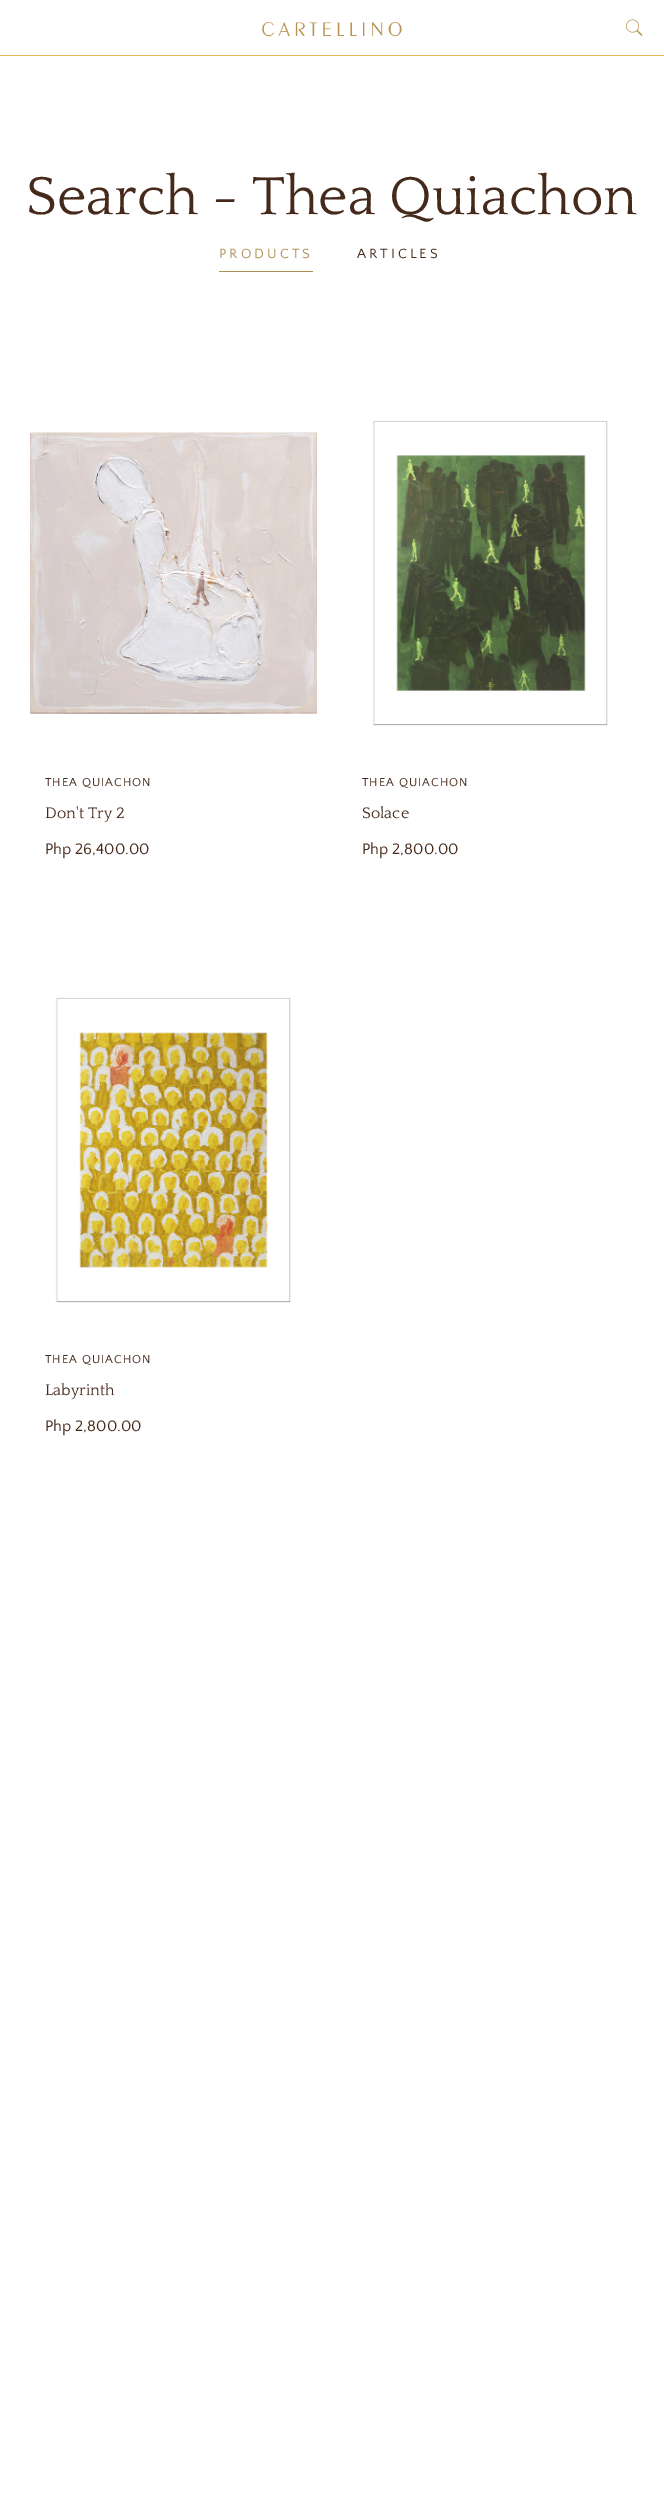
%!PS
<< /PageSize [664 2517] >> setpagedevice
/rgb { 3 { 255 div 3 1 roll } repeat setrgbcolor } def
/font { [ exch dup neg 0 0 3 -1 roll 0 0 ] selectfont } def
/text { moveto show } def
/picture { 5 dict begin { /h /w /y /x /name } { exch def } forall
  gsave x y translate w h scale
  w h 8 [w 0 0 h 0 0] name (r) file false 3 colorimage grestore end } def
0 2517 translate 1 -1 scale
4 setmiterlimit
255 255 255 rgb
0 0 664 2517 rectfill
(img_01.rgb) 626 19 17 17 picture
226 182 93 rgb
0 55 664 1 rectfill
(img_02.rgb) 262 22 140 15 picture
174 144 84 rgb
219 271 94 1 rectfill
(img_03.rgb) 30 432 287 282 picture
(img_04.rgb) 372 420 236 306 picture
(img_05.rgb) 55 997 236 306 picture
/Quattrocento-Regular 56 font
69 41 27 rgb
(Search - Thea Quiachon) 26 214 text
/QuattrocentoSans-Regular 14 font
174 144 84 rgb
219 258 moveto 3 0 (PRODUCTS) ashow
69 41 27 rgb
357 258 moveto 3 0 (ARTICLES) ashow
/QuattrocentoSans-Regular 12 font
45 786 moveto 1 0 (THEA QUIACHON) ashow
/Quattrocento-Regular 16 font
(Don't Try 2) 45 818 text
/QuattrocentoSans-Regular 16 font
(Php 26,400.00) 45 854 text
/QuattrocentoSans-Regular 12 font
362 786 moveto 1 0 (THEA QUIACHON) ashow
/Quattrocento-Regular 16 font
(Solace) 362 818 text
/QuattrocentoSans-Regular 16 font
(Php 2,800.00) 362 854 text
/QuattrocentoSans-Regular 12 font
45 1363 moveto 1 0 (THEA QUIACHON) ashow
/Quattrocento-Regular 16 font
(Labyrinth) 45 1395 text
/QuattrocentoSans-Regular 16 font
(Php 2,800.00) 45 1431 text
showpage
